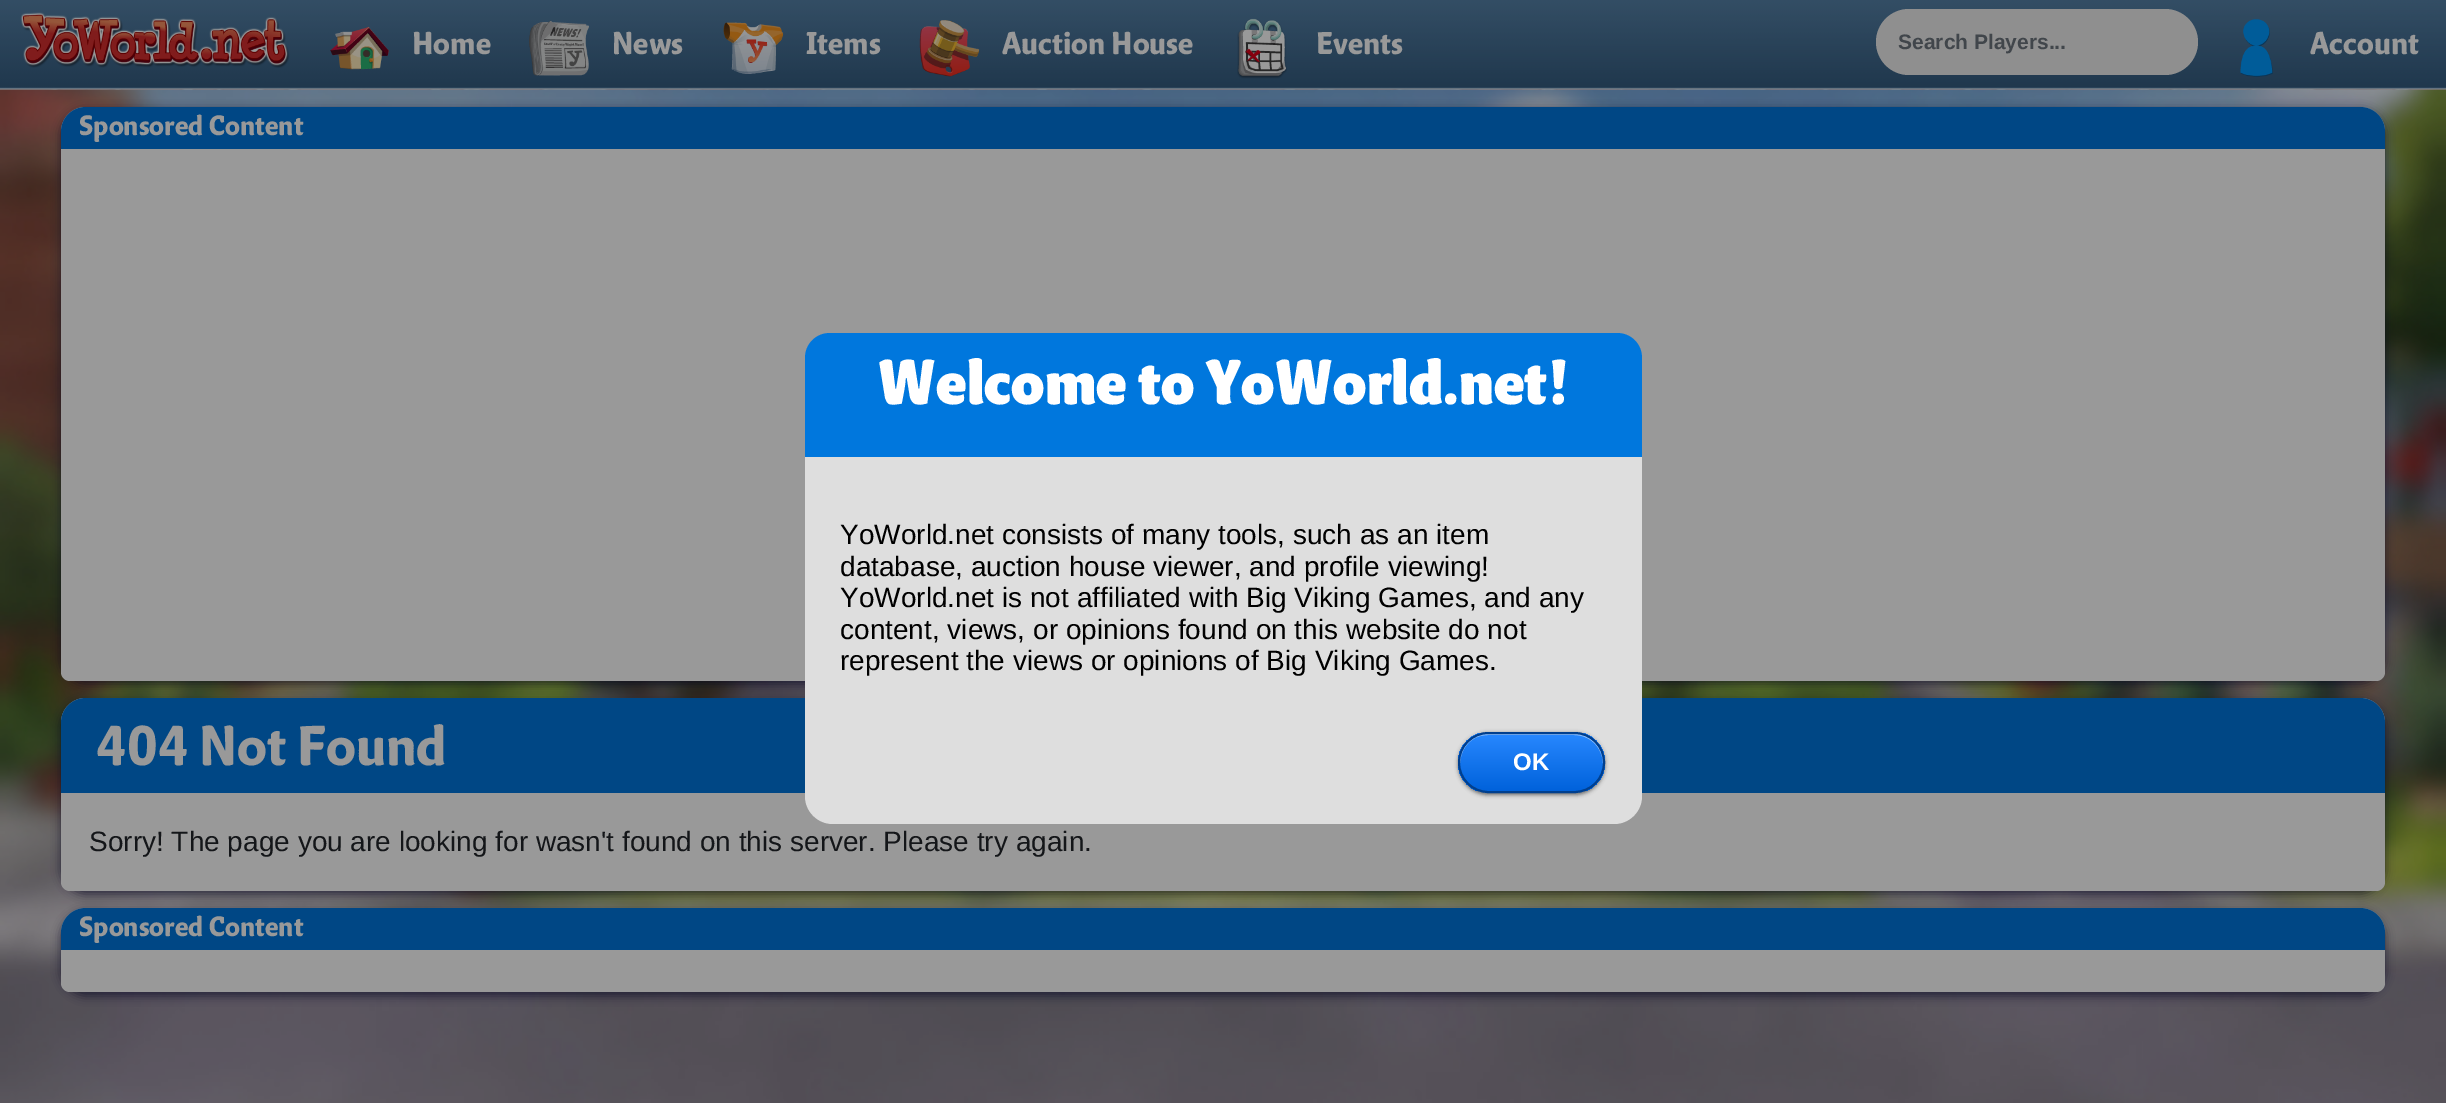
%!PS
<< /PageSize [2446 1103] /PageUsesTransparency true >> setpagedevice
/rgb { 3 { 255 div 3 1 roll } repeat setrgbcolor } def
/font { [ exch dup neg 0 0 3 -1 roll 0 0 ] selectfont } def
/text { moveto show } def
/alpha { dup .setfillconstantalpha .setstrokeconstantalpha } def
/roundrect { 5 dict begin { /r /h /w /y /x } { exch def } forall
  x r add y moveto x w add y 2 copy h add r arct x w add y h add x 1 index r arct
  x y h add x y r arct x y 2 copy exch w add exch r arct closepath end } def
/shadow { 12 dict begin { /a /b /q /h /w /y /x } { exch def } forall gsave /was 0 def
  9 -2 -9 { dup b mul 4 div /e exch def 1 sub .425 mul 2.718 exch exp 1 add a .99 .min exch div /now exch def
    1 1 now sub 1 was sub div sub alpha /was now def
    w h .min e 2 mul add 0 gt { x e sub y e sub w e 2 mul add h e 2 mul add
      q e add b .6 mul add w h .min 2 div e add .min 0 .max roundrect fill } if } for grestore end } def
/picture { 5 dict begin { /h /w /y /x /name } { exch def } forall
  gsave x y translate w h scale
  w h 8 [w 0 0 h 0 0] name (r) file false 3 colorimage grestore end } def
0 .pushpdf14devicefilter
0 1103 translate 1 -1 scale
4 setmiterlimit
255 255 255 rgb
0 0 2446 1103 rectfill
(img_01.rgb) 0 89 2446 1014 picture
(img_02.rgb) 0 0 2446 90 picture
0.5 alpha
153 153 153 rgb
0 88 2446 2 rectfill
1 alpha
(img_03.rgb) 20 12 270 56 picture
(img_04.rgb) 330 26 59 44 picture
(img_05.rgb) 529 20 60 56 picture
(img_06.rgb) 723 22 61 52 picture
(img_07.rgb) 919 20 61 57 picture
(img_08.rgb) 1237 18 50 61 picture
143 143 143 rgb
1876 9 322 66 33 roundrect fill
(img_09.rgb) 2240 19 33 58 picture
0 0 31 rgb
61 110 2324 574 25 5 0.6 shadow
153 153 153 rgb
86 107 moveto 2274 0 rlineto 14 0 25 11 25 25 rcurveto 0 540 rlineto 0 5 -4 9 -9 9 rcurveto -2306 0 rlineto -5 0 -9 -4 -9 -9 rcurveto 0 -540 rlineto 0 -14 11 -25 25 -25 rcurveto closepath fill
0 71 133 rgb
86 107 moveto 2274 0 rlineto 14 0 25 11 25 25 rcurveto 0 17 rlineto -2324 0 rlineto 0 -17 rlineto 0 -14 11 -25 25 -25 rcurveto closepath fill
0 0 31 rgb
61 702 2324 192 25 5 0.6 shadow
153 153 153 rgb
86 698 moveto 2274 0 rlineto 14 0 25 11 25 25 rcurveto 0 159 rlineto 0 5 -4 9 -9 9 rcurveto -2306 0 rlineto -5 0 -9 -4 -9 -9 rcurveto 0 -159 rlineto 0 -14 11 -25 25 -25 rcurveto closepath fill
0 71 133 rgb
86 698 moveto 2274 0 rlineto 14 0 25 11 25 25 rcurveto 0 70 rlineto -2324 0 rlineto 0 -70 rlineto 0 -14 11 -25 25 -25 rcurveto closepath fill
222 222 222 rgb
805 333 837 491 28 roundrect fill
0 119 221 rgb
830 333 moveto 787 0 rlineto 14 0 25 11 25 25 rcurveto 0 99 rlineto -837 0 rlineto 0 -99 rlineto 0 -14 11 -25 25 -25 rcurveto closepath fill
0 0 0 rgb
1458 733 147 62 31 2 0.5 shadow
gsave
1458 732 147 61 30.5 roundrect clip newpath
gsave 1458 733 moveto 147 0 rlineto 0 58 rlineto -147 0 rlineto closepath clip newpath
<< /ShadingType 2 /ColorSpace /DeviceRGB /Coords [1531 733 1531 791] /Extend [true true] /Function << /FunctionType 2 /Domain [0 1] /C0 [0.157 0.533 1] /C1 [0 0.384 0.859] /N 1 >> >> shfill grestore
grestore
0.5 alpha
255 255 255 rgb
1488 735 moveto 86 0 rlineto 16 0 28 12 29 28 rcurveto 0 -1 rlineto 0 -16 -13 -29 -29 -29 rcurveto -85 0 rlineto -16 0 -29 13 -29 29 rcurveto 0 1 rlineto 1 -16 12 -28 28 -28 rcurveto closepath fill
1 alpha
0 63 142 rgb
2 setlinewidth
1459 733 145 59 29.5 roundrect stroke
0 0 31 rgb
61 912 2324 84 25 5 0.6 shadow
153 153 153 rgb
86 908 moveto 2274 0 rlineto 14 0 25 11 25 25 rcurveto 0 50 rlineto 0 5 -4 9 -9 9 rcurveto -2306 0 rlineto -5 0 -9 -4 -9 -9 rcurveto 0 -50 rlineto 0 -14 11 -25 25 -25 rcurveto closepath fill
0 71 133 rgb
86 908 moveto 2274 0 rlineto 14 0 25 11 25 25 rcurveto 0 17 rlineto -2324 0 rlineto 0 -17 rlineto 0 -14 11 -25 25 -25 rcurveto closepath fill
/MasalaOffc-Bold 31.5 font
153 153 153 rgb
(Home) 412 54 text
(News) 612 54 text
(Items) 806 54 text
(Auction House) 1002 54 text
(Events) 1316 54 text
/LiberationSans-Bold 21 font
65 70 75 rgb
(Search Players...) 1898 49 text
/MasalaOffc-Bold 31.5 font
153 153 153 rgb
(Account) 2310 54 text
/MasalaOffc-Bold 28 font
(Sponsored Content) 79 135 text
/MasalaOffc-Black 63 font
255 255 255 rgb
(Welcome to YoWorld.net!) 877 404 text
/LiberationSans-Regular 28 font
0 0 0 rgb
(YoWorld.net consists of many tools, such as an item) 840 544 text
(database, auction house viewer, and profile viewing!) 840 576 text
(YoWorld.net is not affiliated with Big Viking Games, and any) 840 607 text
(content, views, or opinions found on this website do not) 840 639 text
(represent the views or opinions of Big Viking Games.) 840 670 text
/LiberationSans-Bold 24 font
255 255 255 rgb
(OK) 1513 770 text
/MasalaOffc-Bold 56 font
153 153 153 rgb
(404 Not Found) 96 765 text
/LiberationSans-Regular 28 font
20 22 25 rgb
(Sorry! The page you are looking for wasn't found on this server. Please try again.) 89 851 text
/MasalaOffc-Bold 28 font
153 153 153 rgb
(Sponsored Content) 79 936 text
.poppdf14devicefilter showpage
